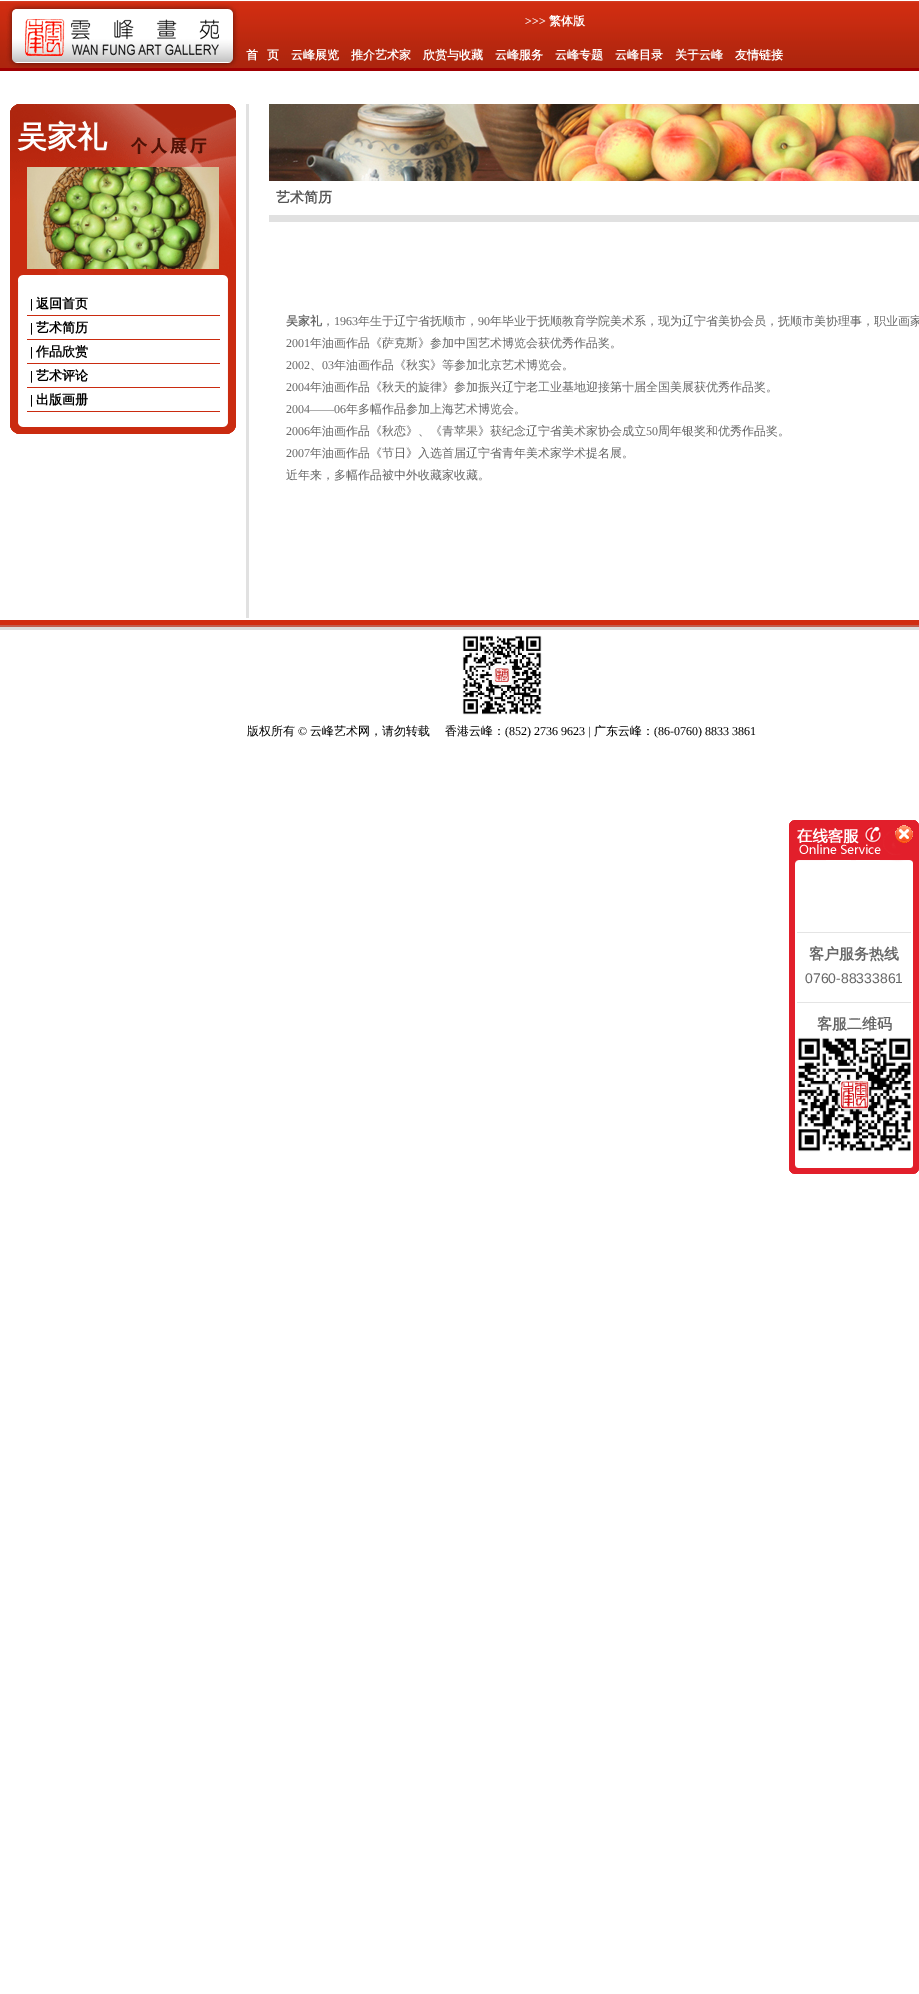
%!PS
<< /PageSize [919 1994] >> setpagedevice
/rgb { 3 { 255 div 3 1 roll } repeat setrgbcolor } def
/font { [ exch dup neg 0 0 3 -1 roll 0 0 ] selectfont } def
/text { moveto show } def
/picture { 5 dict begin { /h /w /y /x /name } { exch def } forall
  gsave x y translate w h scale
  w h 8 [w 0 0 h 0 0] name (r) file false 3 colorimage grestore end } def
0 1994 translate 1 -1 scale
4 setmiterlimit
255 255 255 rgb
0 0 919 1994 rectfill
(img_01.rgb) 0 1 240 70 picture
(img_02.rgb) 6 4 233 64 picture
(img_03.rgb) 240 1 679 70 picture
(img_04.rgb) 10 104 226 167 picture
(img_05.rgb) 27 167 192 102 picture
(img_06.rgb) 10 271 226 11 picture
(img_07.rgb) 10 282 226 140 picture
202 43 16 rgb
27 315 193 1 rectfill
27 339 193 1 rectfill
27 363 193 1 rectfill
27 387 193 1 rectfill
27 411 193 1 rectfill
(img_08.rgb) 10 422 226 12 picture
225 225 225 rgb
246 104 3 514 rectfill
(img_09.rgb) 269 104 650 77 picture
269 215 650 7 rectfill
(img_10.rgb) 0 620 919 10 picture
(img_11.rgb) 462 635 80 80 picture
(img_12.rgb) 789 820 130 45 picture
(img_13.rgb) 895 825 18 18 picture
(img_14.rgb) 789 865 130 294 picture
228 228 228 rgb
797 932 114 1 rectfill
797 1002 114 1 rectfill
(img_15.rgb) 797 1037 115 115 picture
(img_16.rgb) 789 1159 130 15 picture
/LiberationSerif-Bold 12 font
255 255 255 rgb
(>>>) 525 25 text
/WenQuanYiZenHei-Bold 12 font
(繁体版) 549 25 text
(首) 246 59 text
(页) 267 59 text
(云峰展览) 291 59 text
(推介艺术家) 351 59 text
(欣赏与收藏) 423 59 text
(云峰服务) 495 59 text
(云峰专题) 555 59 text
(云峰目录) 615 59 text
(关于云峰) 675 59 text
(友情链接) 735 59 text
/WenQuanYiZenHei-Bold 30 font
(吴家礼) 17 147 text
/LiberationSerif-Bold 13 font
0 0 0 rgb
(|) 30 308 text
/WenQuanYiZenHei-Bold 13 font
(返回首页) 36 308 text
/LiberationSerif-Bold 13 font
(|) 30 332 text
/WenQuanYiZenHei-Bold 13 font
(艺术简历) 36 332 text
/LiberationSerif-Bold 13 font
(|) 30 356 text
/WenQuanYiZenHei-Bold 13 font
(作品欣赏) 36 356 text
/LiberationSerif-Bold 13 font
(|) 30 380 text
/WenQuanYiZenHei-Bold 13 font
(艺术评论) 36 380 text
/LiberationSerif-Bold 13 font
(|) 30 404 text
/WenQuanYiZenHei-Bold 13 font
(出版画册) 36 404 text
/WenQuanYiZenHei-Bold 14 font
85 85 85 rgb
(艺术简历) 276 202 text
/WenQuanYiZenHei-Bold 12 font
102 102 102 rgb
(吴家礼) 286 325 text
/WenQuanYiZenHei-Medium 12 font
(，) 322 325 text
/LiberationSerif-Regular 12 font
(1963) 334 325 text
/WenQuanYiZenHei-Medium 12 font
(年生于辽宁省抚顺市，) 358 325 text
/LiberationSerif-Regular 12 font
(90) 478 325 text
/WenQuanYiZenHei-Medium 12 font
(年毕业于抚顺教育学院美术系，现为辽宁省美协会员，抚顺市美协理事，职业画家) 490 325 text
/LiberationSerif-Regular 12 font
(2001) 286 347 text
/WenQuanYiZenHei-Medium 12 font
(年油画作品《萨克斯》参加中国艺术博览会获优秀作品奖。) 310 347 text
/LiberationSerif-Regular 12 font
(2002) 286 369 text
/WenQuanYiZenHei-Medium 12 font
(、) 310 369 text
/LiberationSerif-Regular 12 font
(03) 322 369 text
/WenQuanYiZenHei-Medium 12 font
(年油画作品《秋实》等参加北京艺术博览会。) 334 369 text
/LiberationSerif-Regular 12 font
(2004) 286 391 text
/WenQuanYiZenHei-Medium 12 font
(年油画作品《秋天的旋律》参加振兴辽宁老工业基地迎接第十届全国美展获优秀作品奖。) 310 391 text
/LiberationSerif-Regular 12 font
(2004——06) 286 413 text
/WenQuanYiZenHei-Medium 12 font
(年多幅作品参加上海艺术博览会。) 346 413 text
/LiberationSerif-Regular 12 font
(2006) 286 435 text
/WenQuanYiZenHei-Medium 12 font
(年油画作品《秋恋》、《青苹果》获纪念辽宁省美术家协会成立) 310 435 text
/LiberationSerif-Regular 12 font
(50) 646 435 text
/WenQuanYiZenHei-Medium 12 font
(周年银奖和优秀作品奖。) 658 435 text
/LiberationSerif-Regular 12 font
(2007) 286 457 text
/WenQuanYiZenHei-Medium 12 font
(年油画作品《节日》入选首届辽宁省青年美术家学术提名展。) 310 457 text
(近年来，多幅作品被中外收藏家收藏。) 286 479 text
0 0 0 rgb
(版权所有) 247 735 text
/LiberationSerif-Regular 12 font
(©) 298 735 text
/WenQuanYiZenHei-Medium 12 font
(云峰艺术网，请勿转载) 310 735 text
(香港云峰：) 445 735 text
/LiberationSerif-Regular 12 font
(\(852\) 2736 9623 |) 505 735 text
/WenQuanYiZenHei-Medium 12 font
(广东云峰：) 594 735 text
/LiberationSerif-Regular 12 font
(\(86-0760\) 8833 3861) 654 735 text
/WenQuanYiZenHei-Bold 15 font
102 102 102 rgb
(客户服务热线) 809 959 text
/LiberationSans-Regular 14 font
(0760-88333861) 805 983 text
/WenQuanYiZenHei-Bold 15 font
(客服二维码) 817 1029 text
showpage
